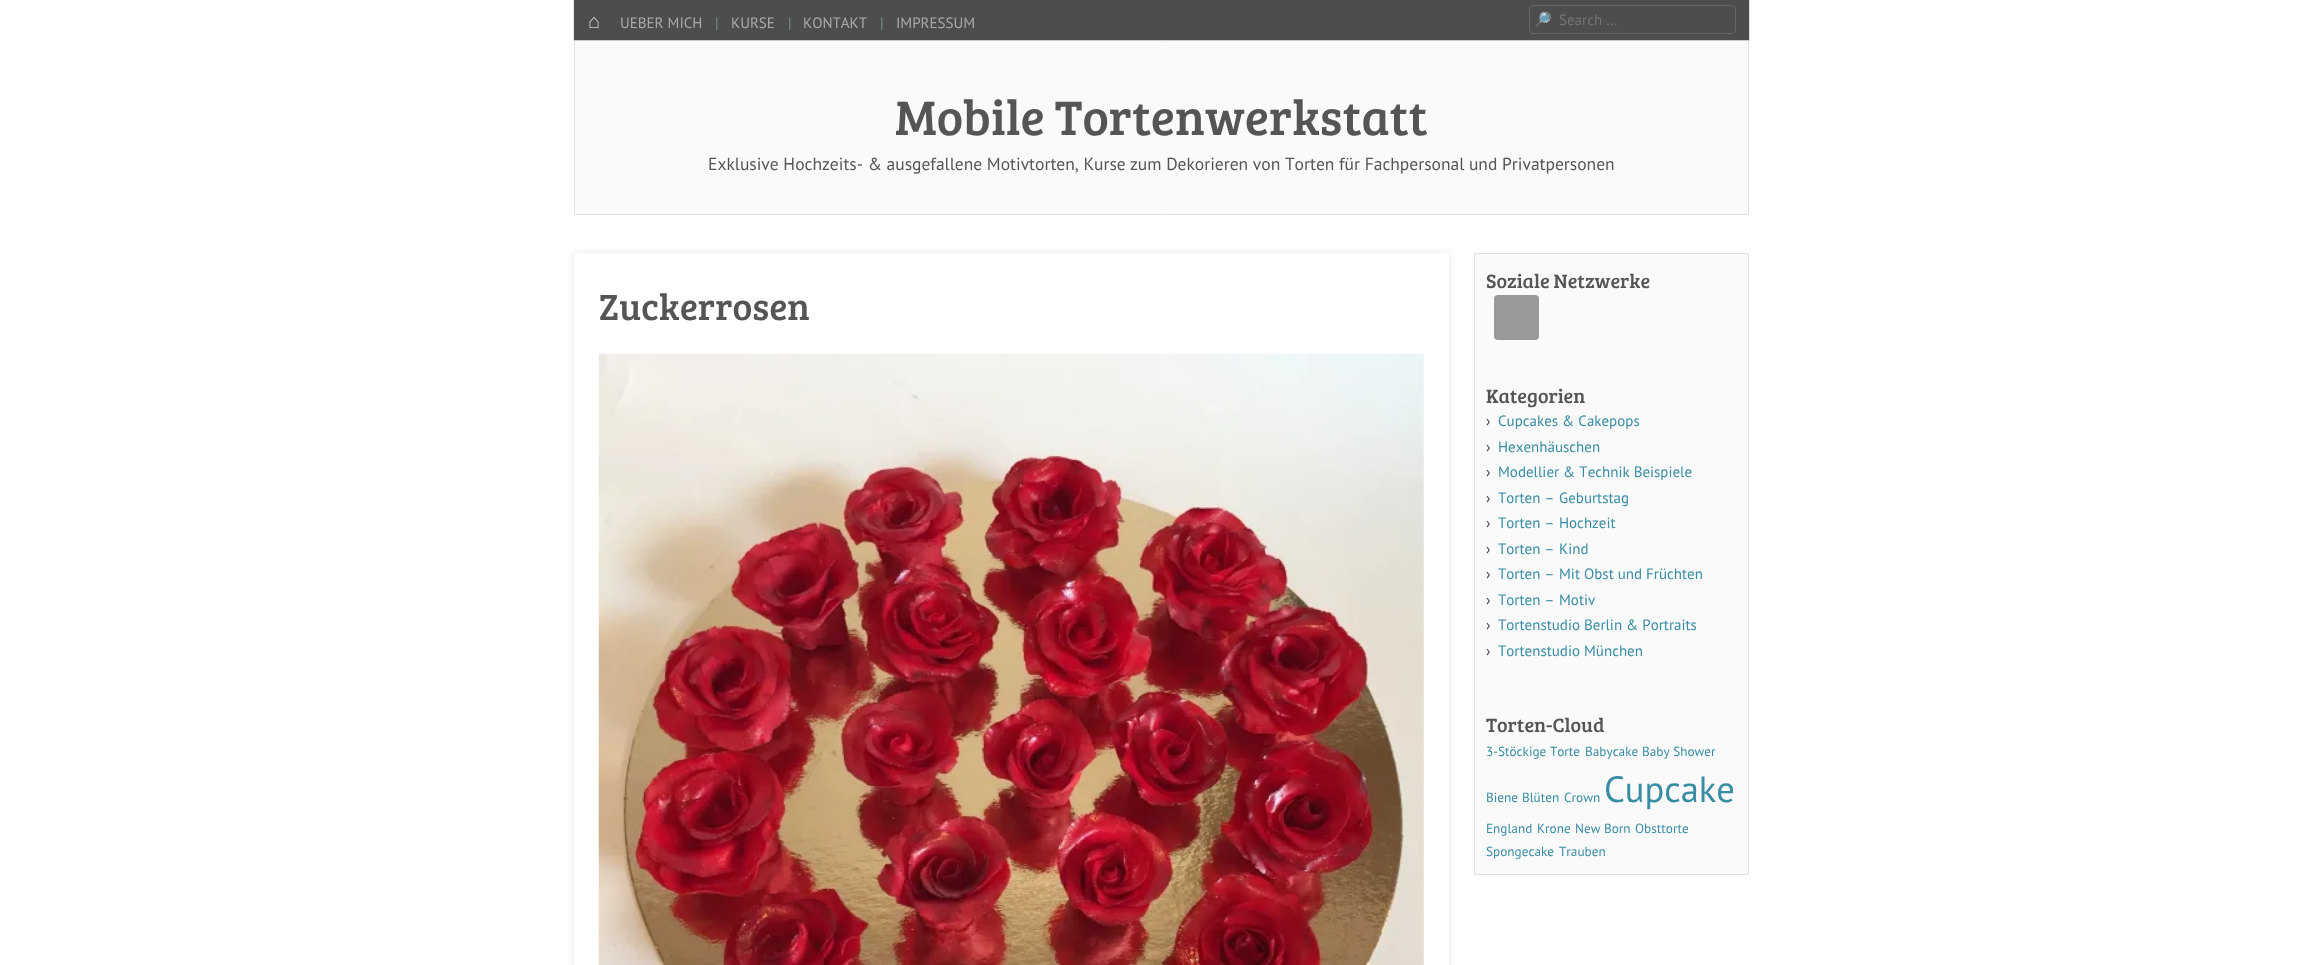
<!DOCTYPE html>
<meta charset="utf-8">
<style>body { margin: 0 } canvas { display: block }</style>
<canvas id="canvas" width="2322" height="965"></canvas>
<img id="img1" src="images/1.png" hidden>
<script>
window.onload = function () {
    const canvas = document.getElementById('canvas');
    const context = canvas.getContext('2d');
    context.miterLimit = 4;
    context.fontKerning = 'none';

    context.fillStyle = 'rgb(255, 255, 255)';
    context.fillRect(0, 0, 2322, 965);
    context.fillStyle = 'rgb(250, 250, 250)';
    context.beginPath();
    context.rect(574.5, 40.5, 1174, 174);
    context.fill();
    context.strokeStyle = 'rgb(225, 225, 225)';
    context.stroke();
    context.strokeStyle = 'rgba(0, 0, 0, 0.1)';
    context.strokeRect(573.5, -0.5, 1176, 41);
    context.fillStyle = 'rgb(77, 77, 77)';
    context.fillRect(574, 0, 1175, 40);
    context.beginPath();
    context.roundRect(1529.5, 5.5, 206, 28, 3.5);
    context.strokeStyle = 'rgb(102, 102, 102)';
    context.stroke();
    context.save();
    context.beginPath();
    context.moveTo(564, 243);
    context.lineTo(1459, 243);
    context.lineTo(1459, 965);
    context.lineTo(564, 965);
    context.closePath();
    context.moveTo(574, 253);
    context.lineTo(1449, 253);
    context.lineTo(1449, 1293);
    context.lineTo(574, 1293);
    context.closePath();
    context.clip('evenodd');
    context.fillStyle = 'rgba(0, 0, 0, 0.1)';
    context.filter = 'blur(3px)';
    context.beginPath();
    context.rect(574, 253, 875, 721);
    context.fill();
    context.filter = 'none';
    context.restore();
    context.fillStyle = 'rgba(255, 255, 255, 0.9)';
    context.fillRect(1448, 255, 1, 710);
    context.drawImage(document.getElementById('img1'), 598, 353, 826, 612);
    context.fillStyle = 'rgb(250, 250, 250)';
    context.beginPath();
    context.rect(1474.5, 253.5, 274, 621);
    context.fill();
    context.strokeStyle = 'rgb(225, 225, 225)';
    context.stroke();
    context.fillStyle = 'rgb(153, 153, 153)';
    context.beginPath();
    context.roundRect(1494, 295, 45, 45, 4);
    context.fill();
    context.font = '20px Liberation Serif';
    context.fillStyle = 'rgb(204, 204, 204)';
    context.fillText('⌂', 588, 28);
    context.font = '15px PT Sans';
    context.fillStyle = 'rgb(170, 170, 170)';
    context.fillText('UEBER MICH', 620, 28);
    context.fillStyle = 'rgb(124, 141, 149)';
    context.fillText('|', 715, 28);
    context.fillStyle = 'rgb(170, 170, 170)';
    context.fillText('KURSE', 731, 28);
    context.fillStyle = 'rgb(124, 141, 149)';
    context.fillText('|', 788, 28);
    context.fillStyle = 'rgb(170, 170, 170)';
    context.fillText('KONTAKT', 803, 28);
    context.fillStyle = 'rgb(124, 141, 149)';
    context.fillText('|', 880, 28);
    context.fillStyle = 'rgb(170, 170, 170)';
    context.fillText('IMPRESSUM', 896, 28);
    context.font = '15px Noto Color Emoji';
    context.fillStyle = 'rgb(204, 204, 204)';
    context.fillText('🔎', 1533, 25);
    context.font = '15px PT Sans';
    context.fillStyle = 'rgb(117, 117, 117)';
    context.fillText('Search …', 1559, 25);
    context.font = '50px Bree Serif';
    context.fillStyle = 'rgb(85, 85, 85)';
    context.fillText('Mobile Tortenwerkstatt', 895, 135);
    context.font = '17.5px PT Sans';
    context.fillText('Exklusive Hochzeits- & ausgefallene Motivtorten, Kurse', 708, 170);
    context.fillText('zum Dekorieren von Torten für Fachpersonal und Privatpersonen', 1130, 170);
    context.font = '37.5px Bree Serif';
    context.fillText('Zuckerrosen', 599, 320);
    context.font = '20px Bree Serif';
    context.fillText('Soziale Netzwerke', 1486, 288);
    context.fillText('Kategorien', 1486, 403);
    context.font = '15px PT Sans';
    context.fillStyle = 'rgb(68, 68, 68)';
    context.fillText('›', 1486, 426);
    context.fillStyle = 'rgb(56, 140, 164)';
    context.fillText('Cupcakes & Cakepops', 1498, 426);
    context.fillStyle = 'rgb(68, 68, 68)';
    context.fillText('›', 1486, 452);
    context.fillStyle = 'rgb(56, 140, 164)';
    context.fillText('Hexenhäuschen', 1498, 452);
    context.fillStyle = 'rgb(68, 68, 68)';
    context.fillText('›', 1486, 477);
    context.fillStyle = 'rgb(56, 140, 164)';
    context.fillText('Modellier & Technik Beispiele', 1498, 477);
    context.fillStyle = 'rgb(68, 68, 68)';
    context.fillText('›', 1486, 503);
    context.fillStyle = 'rgb(56, 140, 164)';
    context.fillText('Torten –', 1498, 503);
    context.fillText('Geburtstag', 1559, 503);
    context.fillStyle = 'rgb(68, 68, 68)';
    context.fillText('›', 1486, 528);
    context.fillStyle = 'rgb(56, 140, 164)';
    context.fillText('Torten –', 1498, 528);
    context.fillText('Hochzeit', 1559, 528);
    context.fillStyle = 'rgb(68, 68, 68)';
    context.fillText('›', 1486, 554);
    context.fillStyle = 'rgb(56, 140, 164)';
    context.fillText('Torten –', 1498, 554);
    context.fillText('Kind', 1559, 554);
    context.fillStyle = 'rgb(68, 68, 68)';
    context.fillText('›', 1486, 579);
    context.fillStyle = 'rgb(56, 140, 164)';
    context.fillText('Torten –', 1498, 579);
    context.fillText('Mit Obst und Früchten', 1559, 579);
    context.fillStyle = 'rgb(68, 68, 68)';
    context.fillText('›', 1486, 605);
    context.fillStyle = 'rgb(56, 140, 164)';
    context.fillText('Torten –', 1498, 605);
    context.fillText('Motiv', 1559, 605);
    context.fillStyle = 'rgb(68, 68, 68)';
    context.fillText('›', 1486, 630);
    context.fillStyle = 'rgb(56, 140, 164)';
    context.fillText('Tortenstudio Berlin & Portraits', 1498, 630);
    context.fillStyle = 'rgb(68, 68, 68)';
    context.fillText('›', 1486, 656);
    context.fillStyle = 'rgb(56, 140, 164)';
    context.fillText('Tortenstudio München', 1498, 656);
    context.font = '20px Bree Serif';
    context.fillStyle = 'rgb(85, 85, 85)';
    context.fillText('Torten-Cloud', 1486, 732);
    context.font = '13.25px PT Sans';
    context.fillStyle = 'rgb(56, 140, 164)';
    context.fillText('3-Stöckige Torte', 1486, 756);
    context.fillText('Babycake', 1585, 756);
    context.fillText('Baby Shower', 1642, 756);
    context.fillText('Biene', 1486, 802);
    context.fillText('Blüten', 1522, 802);
    context.fillText('Crown', 1564, 802);
    context.font = '36.5px PT Sans';
    context.fillText('Cupcake', 1604, 802);
    context.font = '13.25px PT Sans';
    context.fillText('England', 1486, 833);
    context.fillText('Krone', 1537, 833);
    context.fillText('New Born', 1575, 833);
    context.fillText('Obsttorte', 1635, 833);
    context.fillText('Spongecake', 1486, 856);
    context.fillText('Trauben', 1559, 856);
};
</script>
